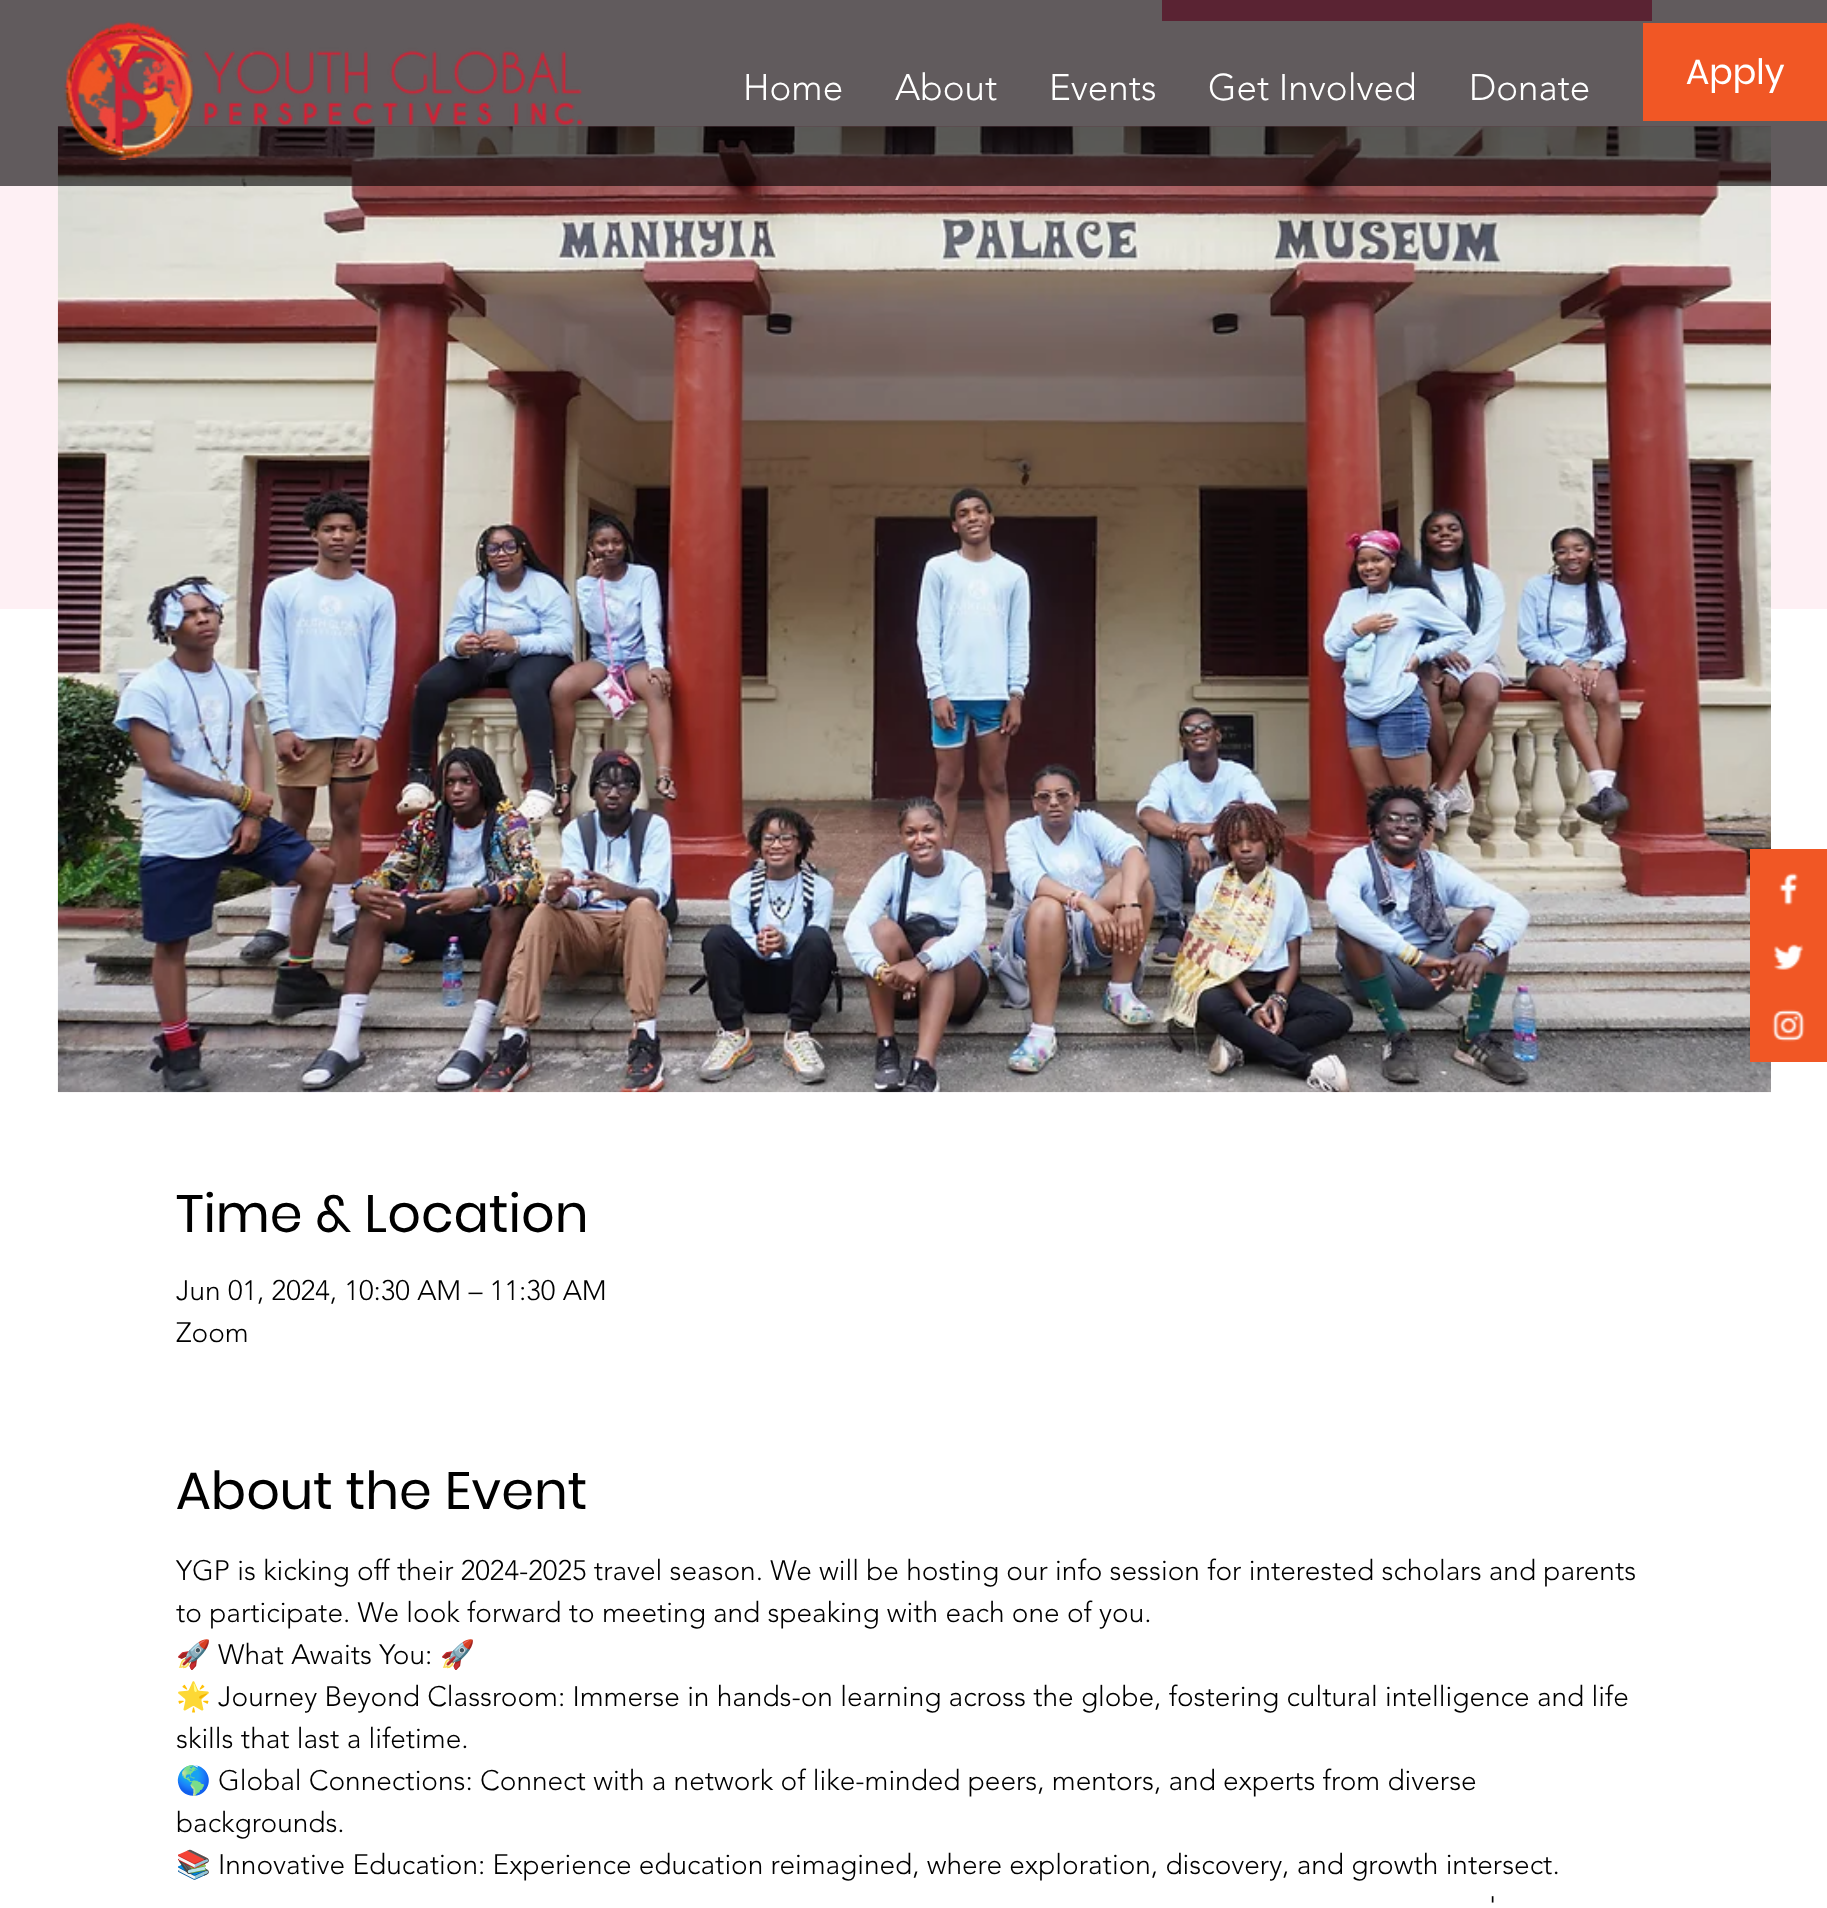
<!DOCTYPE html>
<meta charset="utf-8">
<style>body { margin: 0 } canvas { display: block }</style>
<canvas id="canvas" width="1827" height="1908"></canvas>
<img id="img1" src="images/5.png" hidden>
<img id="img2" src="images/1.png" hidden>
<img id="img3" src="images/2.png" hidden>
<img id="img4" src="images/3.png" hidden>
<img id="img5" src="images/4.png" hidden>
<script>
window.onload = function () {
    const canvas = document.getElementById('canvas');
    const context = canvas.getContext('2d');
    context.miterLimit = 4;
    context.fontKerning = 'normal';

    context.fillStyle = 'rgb(255, 255, 255)';
    context.fillRect(0, 0, 1827, 1908);
    context.fillStyle = 'rgb(254, 240, 244)';
    context.fillRect(0, 0, 1827, 609);
    context.fillStyle = 'rgb(236, 94, 135)';
    context.fillRect(1162, 0, 490, 21);
    context.fillStyle = 'rgb(245, 166, 189)';
    context.fillRect(58, 126, 1713, 1);
    context.drawImage(document.getElementById('img1'), 57, 126, 1714, 967);
    context.fillStyle = 'rgba(0, 0, 0, 0.62)';
    context.fillRect(0, 0, 1827, 186);
    context.drawImage(document.getElementById('img2'), 64, 21, 520, 139);
    context.fillStyle = 'rgb(241, 87, 37)';
    context.fillRect(1643, 23, 184, 98);
    context.fillRect(1750, 849, 77, 213);
    context.drawImage(document.getElementById('img3'), 1779, 873, 20, 33);
    context.drawImage(document.getElementById('img4'), 1773, 944, 31, 26);
    context.drawImage(document.getElementById('img5'), 1772, 1009, 33, 33);
    context.font = '300 36.75px "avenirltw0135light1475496"';
    context.fillStyle = 'rgb(255, 255, 255)';
    context.fillText('Home', 743, 100);
    context.fillText('About', 895, 100);
    context.fillText('Events', 1049, 100);
    context.fillText('Get Involved', 1208, 100);
    context.fillText('Donate', 1469, 100);
    context.font = '35px Poppins';
    context.fillText('Apply', 1686, 84);
    context.font = '52.5px Poppins';
    context.fillStyle = 'rgb(0, 0, 0)';
    context.fillText('Time & Location', 176, 1232);
    context.font = '300 28px "avenirltw0135light1475496"';
    context.fillText('Jun 01, 2024, 10:30 AM – 11:30 AM', 176, 1300);
    context.fillText('Zoom', 176, 1342);
    context.font = '52.5px Poppins';
    context.fillText('About the Event', 176, 1509);
    context.font = '300 28px "avenirltw0135light1475496"';
    context.fillText('YGP is kicking off their 2024-2025 travel season. We will be hosting our info session for interested scholars and parents', 176, 1580);
    context.fillText('to participate. We look forward to meeting and speaking with each one of you.', 176, 1622);
    context.font = '28px Noto Color Emoji';
    context.fillText('🚀', 176, 1664);
    context.font = '300 28px "avenirltw0135light1475496"';
    context.fillText('What Awaits You:', 218, 1664);
    context.font = '28px Noto Color Emoji';
    context.fillText('🚀', 440, 1664);
    context.fillText('🌟', 176, 1706);
    context.font = '300 28px "avenirltw0135light1475496"';
    context.fillText('Journey Beyond Classroom: Immerse in hands-on learning across the globe, fostering cultural intelligence and life', 218, 1706);
    context.fillText('skills that last a lifetime.', 176, 1748);
    context.font = '28px Noto Color Emoji';
    context.fillText('🌎', 176, 1790);
    context.font = '300 28px "avenirltw0135light1475496"';
    context.fillText('Global Connections: Connect with a network of like-minded peers, mentors, and experts from diverse', 218, 1790);
    context.fillText('backgrounds.', 176, 1832);
    context.font = '28px Noto Color Emoji';
    context.fillText('📚', 176, 1874);
    context.font = '300 28px "avenirltw0135light1475496"';
    context.fillText('Innovative Education: Experience education reimagined, where exploration, discovery, and growth intersect.', 218, 1874);
    context.fillText('\'', 1489, 1916);
};
</script>
